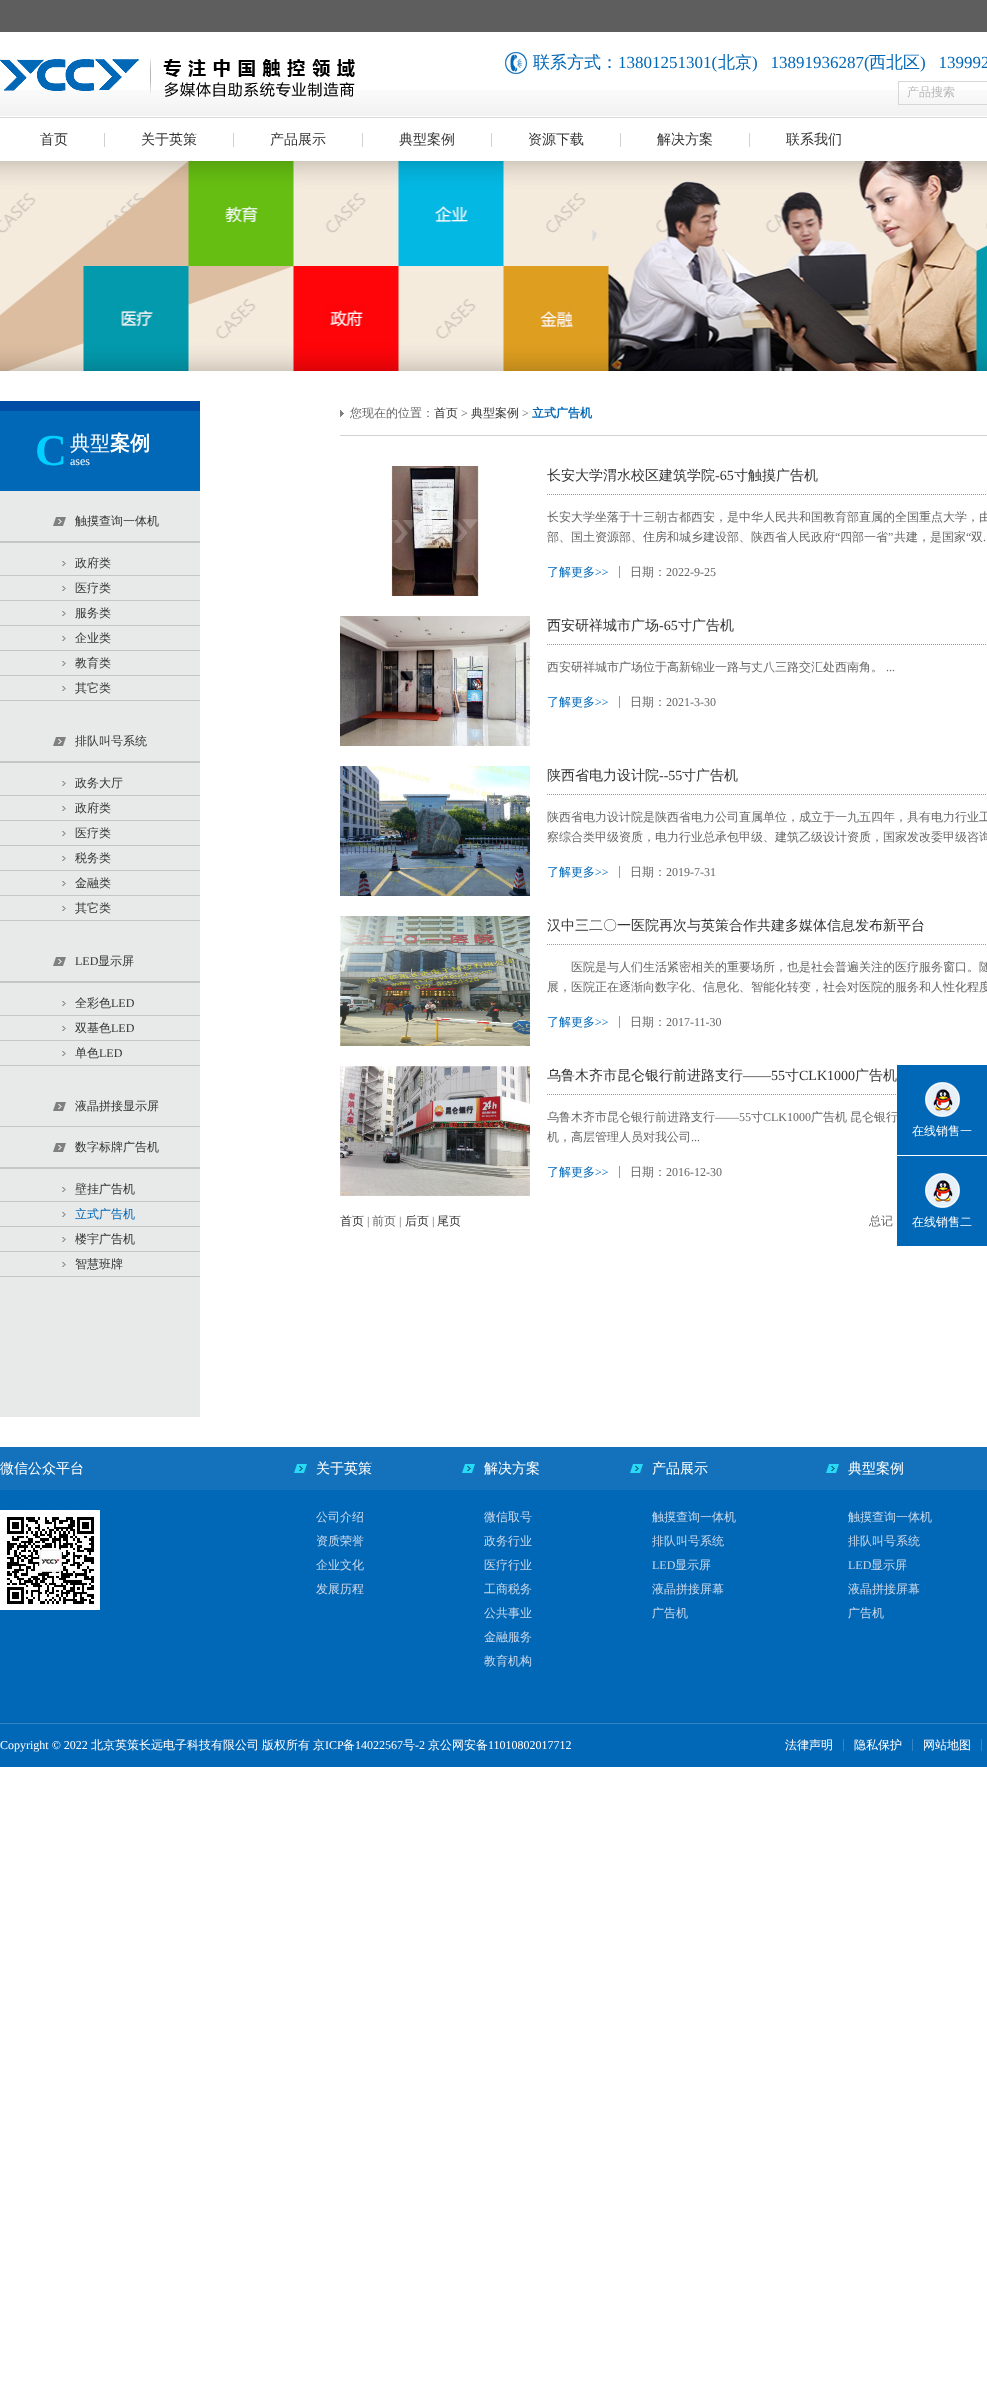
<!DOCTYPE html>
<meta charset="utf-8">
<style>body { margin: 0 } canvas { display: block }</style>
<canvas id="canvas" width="987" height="2402"></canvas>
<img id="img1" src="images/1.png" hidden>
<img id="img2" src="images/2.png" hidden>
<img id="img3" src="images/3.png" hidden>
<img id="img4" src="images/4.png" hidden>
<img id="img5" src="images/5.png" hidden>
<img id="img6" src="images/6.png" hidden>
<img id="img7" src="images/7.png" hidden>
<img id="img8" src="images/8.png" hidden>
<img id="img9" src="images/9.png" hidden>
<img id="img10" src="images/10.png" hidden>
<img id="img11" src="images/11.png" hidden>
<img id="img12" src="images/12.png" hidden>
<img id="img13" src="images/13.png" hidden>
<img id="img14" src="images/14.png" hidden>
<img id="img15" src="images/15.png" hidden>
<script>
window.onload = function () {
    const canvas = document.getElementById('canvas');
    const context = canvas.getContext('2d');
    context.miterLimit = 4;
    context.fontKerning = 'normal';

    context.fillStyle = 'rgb(255, 255, 255)';
    context.fillRect(0, 0, 987, 2402);
    context.fillStyle = 'rgb(94, 94, 94)';
    context.fillRect(0, 0, 987, 32);
    context.drawImage(document.getElementById('img1'), 0, 90, 987, 26);
    context.fillStyle = 'rgb(217, 217, 217)';
    context.fillRect(0, 117, 987, 1);
    context.drawImage(document.getElementById('img2'), 0, 57, 355, 40);
    context.drawImage(document.getElementById('img3'), 505, 52, 22, 22);
    context.strokeStyle = 'rgb(215, 215, 215)';
    context.strokeRect(898.5, 81.5, 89, 23);
    context.fillStyle = 'rgb(209, 209, 209)';
    context.fillRect(104, 133, 1, 14);
    context.fillRect(233, 133, 1, 14);
    context.fillRect(362, 133, 1, 14);
    context.fillRect(491, 133, 1, 14);
    context.fillRect(620, 133, 1, 14);
    context.fillRect(749, 133, 1, 14);
    context.drawImage(document.getElementById('img4'), 0, 161, 987, 210);
    context.fillStyle = 'rgb(1, 103, 183)';
    context.fillRect(0, 411, 200, 80);
    context.fillStyle = 'rgb(1, 77, 165)';
    context.fillRect(0, 401, 200, 10);
    context.fillStyle = 'rgb(232, 233, 233)';
    context.fillRect(0, 491, 200, 926);
    context.fillStyle = 'rgb(197, 198, 198)';
    context.fillRect(0, 541, 200, 2);
    context.drawImage(document.getElementById('img5'), 53, 517, 13, 9);
    context.fillRect(0, 575, 200, 1);
    context.drawImage(document.getElementById('img6'), 62, 561, 4, 5);
    context.fillRect(0, 600, 200, 1);
    context.drawImage(document.getElementById('img6'), 62, 586, 4, 5);
    context.fillRect(0, 625, 200, 1);
    context.drawImage(document.getElementById('img6'), 62, 611, 4, 5);
    context.fillRect(0, 650, 200, 1);
    context.drawImage(document.getElementById('img6'), 62, 636, 4, 5);
    context.fillRect(0, 675, 200, 1);
    context.drawImage(document.getElementById('img6'), 62, 661, 4, 5);
    context.fillRect(0, 700, 200, 1);
    context.drawImage(document.getElementById('img6'), 62, 686, 4, 5);
    context.fillRect(0, 761, 200, 2);
    context.drawImage(document.getElementById('img5'), 53, 737, 13, 9);
    context.fillRect(0, 795, 200, 1);
    context.drawImage(document.getElementById('img6'), 62, 781, 4, 5);
    context.fillRect(0, 820, 200, 1);
    context.drawImage(document.getElementById('img6'), 62, 806, 4, 5);
    context.fillRect(0, 845, 200, 1);
    context.drawImage(document.getElementById('img6'), 62, 831, 4, 5);
    context.fillRect(0, 870, 200, 1);
    context.drawImage(document.getElementById('img6'), 62, 856, 4, 5);
    context.fillRect(0, 895, 200, 1);
    context.drawImage(document.getElementById('img6'), 62, 881, 4, 5);
    context.fillRect(0, 920, 200, 1);
    context.drawImage(document.getElementById('img6'), 62, 906, 4, 5);
    context.fillRect(0, 981, 200, 2);
    context.drawImage(document.getElementById('img5'), 53, 957, 13, 9);
    context.fillRect(0, 1015, 200, 1);
    context.drawImage(document.getElementById('img6'), 62, 1001, 4, 5);
    context.fillRect(0, 1040, 200, 1);
    context.drawImage(document.getElementById('img6'), 62, 1026, 4, 5);
    context.fillRect(0, 1065, 200, 1);
    context.drawImage(document.getElementById('img6'), 62, 1051, 4, 5);
    context.fillRect(0, 1126, 200, 1);
    context.drawImage(document.getElementById('img5'), 53, 1102, 13, 9);
    context.fillRect(0, 1167, 200, 2);
    context.drawImage(document.getElementById('img5'), 53, 1143, 13, 9);
    context.fillRect(0, 1201, 200, 1);
    context.drawImage(document.getElementById('img6'), 62, 1187, 4, 5);
    context.fillRect(0, 1226, 200, 1);
    context.drawImage(document.getElementById('img6'), 62, 1212, 4, 5);
    context.fillRect(0, 1251, 200, 1);
    context.drawImage(document.getElementById('img6'), 62, 1237, 4, 5);
    context.fillRect(0, 1276, 200, 1);
    context.drawImage(document.getElementById('img6'), 62, 1262, 4, 5);
    context.fillStyle = 'rgb(209, 209, 209)';
    context.fillRect(340, 435, 647, 1);
    context.drawImage(document.getElementById('img7'), 340, 410, 4, 7);
    context.drawImage(document.getElementById('img8'), 391, 466, 88, 130);
    context.beginPath();
    context.moveTo(547, 494.5);
    context.lineTo(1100, 494.5);
    context.strokeStyle = 'rgb(153, 153, 153)';
    context.setLineDash([1, 1]);
    context.stroke();
    context.fillStyle = 'rgb(153, 153, 153)';
    context.fillRect(619, 566, 1, 12);
    context.drawImage(document.getElementById('img9'), 340, 616, 190, 130);
    context.beginPath();
    context.moveTo(547, 644.5);
    context.lineTo(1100, 644.5);
    context.stroke();
    context.fillRect(619, 696, 1, 12);
    context.drawImage(document.getElementById('img10'), 340, 766, 190, 130);
    context.beginPath();
    context.moveTo(547, 794.5);
    context.lineTo(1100, 794.5);
    context.stroke();
    context.fillRect(619, 866, 1, 12);
    context.drawImage(document.getElementById('img11'), 340, 916, 190, 130);
    context.beginPath();
    context.moveTo(547, 944.5);
    context.lineTo(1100, 944.5);
    context.stroke();
    context.fillRect(619, 1016, 1, 12);
    context.drawImage(document.getElementById('img12'), 340, 1066, 190, 130);
    context.beginPath();
    context.moveTo(547, 1094.5);
    context.lineTo(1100, 1094.5);
    context.stroke();
    context.fillRect(619, 1166, 1, 12);
    context.fillStyle = 'rgb(1, 103, 183)';
    context.fillRect(0, 1490, 987, 277);
    context.fillRect(897, 1156, 90, 90);
    context.drawImage(document.getElementById('img13'), 925, 1173, 35, 35);
    context.fillStyle = 'rgb(20, 114, 188)';
    context.fillRect(0, 1447, 987, 43);
    context.drawImage(document.getElementById('img14'), 0, 1510, 100, 100);
    context.drawImage(document.getElementById('img15'), 294, 1464, 13, 9);
    context.drawImage(document.getElementById('img15'), 462, 1464, 13, 9);
    context.drawImage(document.getElementById('img15'), 630, 1464, 13, 9);
    context.drawImage(document.getElementById('img15'), 826, 1464, 13, 9);
    context.fillStyle = 'rgb(52, 133, 197)';
    context.fillRect(0, 1723, 987, 1);
    context.fillRect(843, 1739, 1, 12);
    context.fillRect(912, 1739, 1, 12);
    context.fillRect(981, 1739, 1, 12);
    context.font = '500 17px WenQuanYi Zen Hei';
    context.fillStyle = 'rgb(1, 103, 183)';
    context.fillText('联系方式：', 533, 68);
    context.font = '17px Liberation Serif';
    context.fillText('13801251301(', 618, 68);
    context.font = '500 17px WenQuanYi Zen Hei';
    context.fillText('北京', 718, 68);
    context.font = '17px Liberation Serif';
    context.fillText(')   13891936287(', 752, 68);
    context.font = '500 17px WenQuanYi Zen Hei';
    context.fillText('西北区', 869, 68);
    context.font = '17px Liberation Serif';
    context.fillText(')   139992', 920, 68);
    context.font = '500 12px WenQuanYi Zen Hei';
    context.fillStyle = 'rgb(184, 184, 184)';
    context.fillText('产品搜索', 907, 96);
    context.font = '500 14px WenQuanYi Zen Hei';
    context.fillStyle = 'rgb(51, 51, 51)';
    context.fillText('首页', 40, 144);
    context.fillText('关于英策', 141, 144);
    context.fillText('产品展示', 270, 144);
    context.fillText('典型案例', 399, 144);
    context.fillText('资源下载', 528, 144);
    context.fillText('解决方案', 657, 144);
    context.fillText('联系我们', 786, 144);
    context.font = 'bold 44px Liberation Serif';
    context.fillStyle = 'rgb(2, 206, 255)';
    context.fillText('C', 35, 465);
    context.font = '500 20px WenQuanYi Zen Hei';
    context.fillStyle = 'rgb(255, 255, 255)';
    context.fillText('典型', 70, 450);
    context.font = 'bold 20px WenQuanYi Zen Hei';
    context.fillText('案例', 110, 450);
    context.font = '12px Liberation Serif';
    context.fillText('ases', 70, 465);
    context.font = '500 12px WenQuanYi Zen Hei';
    context.fillStyle = 'rgb(51, 51, 51)';
    context.fillText('触摸查询一体机', 75, 525);
    context.fillText('政府类', 75, 567);
    context.fillText('医疗类', 75, 592);
    context.fillText('服务类', 75, 617);
    context.fillText('企业类', 75, 642);
    context.fillText('教育类', 75, 667);
    context.fillText('其它类', 75, 692);
    context.fillText('排队叫号系统', 75, 745);
    context.fillText('政务大厅', 75, 787);
    context.fillText('政府类', 75, 812);
    context.fillText('医疗类', 75, 837);
    context.fillText('税务类', 75, 862);
    context.fillText('金融类', 75, 887);
    context.fillText('其它类', 75, 912);
    context.font = '12px Liberation Serif';
    context.fillText('LED', 75, 965);
    context.font = '500 12px WenQuanYi Zen Hei';
    context.fillText('显示屏', 98, 965);
    context.fillText('全彩色', 75, 1007);
    context.font = '12px Liberation Serif';
    context.fillText('LED', 111, 1007);
    context.font = '500 12px WenQuanYi Zen Hei';
    context.fillText('双基色', 75, 1032);
    context.font = '12px Liberation Serif';
    context.fillText('LED', 111, 1032);
    context.font = '500 12px WenQuanYi Zen Hei';
    context.fillText('单色', 75, 1057);
    context.font = '12px Liberation Serif';
    context.fillText('LED', 99, 1057);
    context.font = '500 12px WenQuanYi Zen Hei';
    context.fillText('液晶拼接显示屏', 75, 1110);
    context.fillText('数字标牌广告机', 75, 1151);
    context.fillText('壁挂广告机', 75, 1193);
    context.fillStyle = 'rgb(1, 103, 183)';
    context.fillText('立式广告机', 75, 1218);
    context.fillStyle = 'rgb(51, 51, 51)';
    context.fillText('楼宇广告机', 75, 1243);
    context.fillText('智慧班牌', 75, 1268);
    context.fillStyle = 'rgb(102, 102, 102)';
    context.fillText('您现在的位置：', 350, 417);
    context.fillStyle = 'rgb(51, 51, 51)';
    context.fillText('首页', 434, 417);
    context.font = '12px Liberation Serif';
    context.fillStyle = 'rgb(102, 102, 102)';
    context.fillText('>', 461, 417);
    context.font = '500 12px WenQuanYi Zen Hei';
    context.fillStyle = 'rgb(51, 51, 51)';
    context.fillText('典型案例', 471, 417);
    context.font = '12px Liberation Serif';
    context.fillStyle = 'rgb(102, 102, 102)';
    context.fillText('>', 522, 417);
    context.font = 'bold 12px WenQuanYi Zen Hei';
    context.fillStyle = 'rgb(1, 103, 183)';
    context.fillText('立式广告机', 532, 417);
    context.font = '500 14px WenQuanYi Zen Hei';
    context.fillStyle = 'rgb(51, 51, 51)';
    context.fillText('长安大学渭水校区建筑学院', 547, 480);
    context.font = '14px Liberation Serif';
    context.fillText('-65', 715, 480);
    context.font = '500 14px WenQuanYi Zen Hei';
    context.fillText('寸触摸广告机', 734, 480);
    context.font = '500 12px WenQuanYi Zen Hei';
    context.fillStyle = 'rgb(102, 102, 102)';
    context.fillText('长安大学坐落于十三朝古都西安，是中华人民共和国教育部直属的全国重点大学，由', 547, 521);
    context.fillText('部、国土资源部、住房和城乡建设部、陕西省人民政府', 547, 541);
    context.font = '12px Liberation Serif';
    context.fillText('“', 835, 541);
    context.font = '500 12px WenQuanYi Zen Hei';
    context.fillText('四部一省', 840, 541);
    context.font = '12px Liberation Serif';
    context.fillText('”', 888, 541);
    context.font = '500 12px WenQuanYi Zen Hei';
    context.fillText('共建，是国家', 894, 541);
    context.font = '12px Liberation Serif';
    context.fillText('“', 966, 541);
    context.font = '500 12px WenQuanYi Zen Hei';
    context.fillText('双', 971, 541);
    context.font = '12px Liberation Serif';
    context.fillText('.', 983, 541);
    context.font = '500 12px WenQuanYi Zen Hei';
    context.fillStyle = 'rgb(1, 103, 183)';
    context.fillText('了解更多', 547, 576);
    context.font = '12px Liberation Serif';
    context.fillText('>>', 595, 576);
    context.font = '500 12px WenQuanYi Zen Hei';
    context.fillStyle = 'rgb(102, 102, 102)';
    context.fillText('日期：', 630, 576);
    context.font = '12px Liberation Serif';
    context.fillText('2022-9-25', 666, 576);
    context.font = '500 14px WenQuanYi Zen Hei';
    context.fillStyle = 'rgb(51, 51, 51)';
    context.fillText('西安研祥城市广场', 547, 630);
    context.font = '14px Liberation Serif';
    context.fillText('-65', 659, 630);
    context.font = '500 14px WenQuanYi Zen Hei';
    context.fillText('寸广告机', 678, 630);
    context.font = '500 12px WenQuanYi Zen Hei';
    context.fillStyle = 'rgb(102, 102, 102)';
    context.fillText('西安研祥城市广场位于高新锦业一路与丈八三路交汇处西南角。', 547, 671);
    context.font = '12px Liberation Serif';
    context.fillText('...', 886, 671);
    context.font = '500 12px WenQuanYi Zen Hei';
    context.fillStyle = 'rgb(1, 103, 183)';
    context.fillText('了解更多', 547, 706);
    context.font = '12px Liberation Serif';
    context.fillText('>>', 595, 706);
    context.font = '500 12px WenQuanYi Zen Hei';
    context.fillStyle = 'rgb(102, 102, 102)';
    context.fillText('日期：', 630, 706);
    context.font = '12px Liberation Serif';
    context.fillText('2021-3-30', 666, 706);
    context.font = '500 14px WenQuanYi Zen Hei';
    context.fillStyle = 'rgb(51, 51, 51)';
    context.fillText('陕西省电力设计院', 547, 780);
    context.font = '14px Liberation Serif';
    context.fillText('--55', 659, 780);
    context.font = '500 14px WenQuanYi Zen Hei';
    context.fillText('寸广告机', 682, 780);
    context.font = '500 12px WenQuanYi Zen Hei';
    context.fillStyle = 'rgb(102, 102, 102)';
    context.fillText('陕西省电力设计院是陕西省电力公司直属单位，成立于一九五四年，具有电力行业工', 547, 821);
    context.fillText('察综合类甲级资质，电力行业总承包甲级、建筑乙级设计资质，国家发改委甲级咨询', 547, 841);
    context.fillStyle = 'rgb(1, 103, 183)';
    context.fillText('了解更多', 547, 876);
    context.font = '12px Liberation Serif';
    context.fillText('>>', 595, 876);
    context.font = '500 12px WenQuanYi Zen Hei';
    context.fillStyle = 'rgb(102, 102, 102)';
    context.fillText('日期：', 630, 876);
    context.font = '12px Liberation Serif';
    context.fillText('2019-7-31', 666, 876);
    context.font = '500 14px WenQuanYi Zen Hei';
    context.fillStyle = 'rgb(51, 51, 51)';
    context.fillText('汉中三二〇一医院再次与英策合作共建多媒体信息发布新平台', 547, 930);
    context.font = '500 12px WenQuanYi Zen Hei';
    context.fillStyle = 'rgb(102, 102, 102)';
    context.fillText('医院是与人们生活紧密相关的重要场所，也是社会普遍关注的医疗服务窗口。随', 571, 971);
    context.fillText('展，医院正在逐渐向数字化、信息化、智能化转变，社会对医院的服务和人性化程度', 547, 991);
    context.fillStyle = 'rgb(1, 103, 183)';
    context.fillText('了解更多', 547, 1026);
    context.font = '12px Liberation Serif';
    context.fillText('>>', 595, 1026);
    context.font = '500 12px WenQuanYi Zen Hei';
    context.fillStyle = 'rgb(102, 102, 102)';
    context.fillText('日期：', 630, 1026);
    context.font = '12px Liberation Serif';
    context.fillText('2017-11-30', 666, 1026);
    context.font = '500 14px WenQuanYi Zen Hei';
    context.fillStyle = 'rgb(51, 51, 51)';
    context.fillText('乌鲁木齐市昆仑银行前进路支行', 547, 1080);
    context.font = '14px Liberation Serif';
    context.fillText('——55', 743, 1080);
    context.font = '500 14px WenQuanYi Zen Hei';
    context.fillText('寸', 785, 1080);
    context.font = '14px Liberation Serif';
    context.fillText('CLK1000', 799, 1080);
    context.font = '500 14px WenQuanYi Zen Hei';
    context.fillText('广告机', 855, 1080);
    context.font = '500 12px WenQuanYi Zen Hei';
    context.fillStyle = 'rgb(102, 102, 102)';
    context.fillText('乌鲁木齐市昆仑银行前进路支行', 547, 1121);
    context.font = '12px Liberation Serif';
    context.fillText('——55', 715, 1121);
    context.font = '500 12px WenQuanYi Zen Hei';
    context.fillText('寸', 751, 1121);
    context.font = '12px Liberation Serif';
    context.fillText('CLK1000', 763, 1121);
    context.font = '500 12px WenQuanYi Zen Hei';
    context.fillText('广告机', 811, 1121);
    context.fillText('昆仑银行', 850, 1121);
    context.fillText('机，高层管理人员对我公司', 547, 1141);
    context.font = '12px Liberation Serif';
    context.fillText('...', 691, 1141);
    context.font = '500 12px WenQuanYi Zen Hei';
    context.fillStyle = 'rgb(1, 103, 183)';
    context.fillText('了解更多', 547, 1176);
    context.font = '12px Liberation Serif';
    context.fillText('>>', 595, 1176);
    context.font = '500 12px WenQuanYi Zen Hei';
    context.fillStyle = 'rgb(102, 102, 102)';
    context.fillText('日期：', 630, 1176);
    context.font = '12px Liberation Serif';
    context.fillText('2016-12-30', 666, 1176);
    context.font = '500 12px WenQuanYi Zen Hei';
    context.fillStyle = 'rgb(51, 51, 51)';
    context.fillText('首页', 340, 1225);
    context.font = '12px Liberation Serif';
    context.fillStyle = 'rgb(102, 102, 102)';
    context.fillText('|', 367, 1225);
    context.font = '500 12px WenQuanYi Zen Hei';
    context.fillText('前页', 372, 1225);
    context.font = '12px Liberation Serif';
    context.fillText('|', 399, 1225);
    context.font = '500 12px WenQuanYi Zen Hei';
    context.fillStyle = 'rgb(51, 51, 51)';
    context.fillText('后页', 405, 1225);
    context.font = '12px Liberation Serif';
    context.fillStyle = 'rgb(102, 102, 102)';
    context.fillText('|', 432, 1225);
    context.font = '500 12px WenQuanYi Zen Hei';
    context.fillStyle = 'rgb(51, 51, 51)';
    context.fillText('尾页', 437, 1225);
    context.fillStyle = 'rgb(102, 102, 102)';
    context.fillText('总记', 869, 1225);
    context.fillStyle = 'rgb(1, 103, 183)';
    context.fillRect(897, 1065, 90, 90);
    context.drawImage(document.getElementById('img13'), 925, 1082, 35, 35);
    context.fillStyle = 'rgb(255, 255, 255)';
    context.fillText('在线销售一', 912, 1135);
    context.fillText('在线销售二', 912, 1226);
    context.font = '500 14px WenQuanYi Zen Hei';
    context.fillText('微信公众平台', 0, 1473);
    context.fillText('关于英策', 316, 1473);
    context.font = '500 12px WenQuanYi Zen Hei';
    context.fillStyle = 'rgb(203, 217, 235)';
    context.fillText('公司介绍', 316, 1521);
    context.fillText('资质荣誉', 316, 1545);
    context.fillText('企业文化', 316, 1569);
    context.fillText('发展历程', 316, 1593);
    context.font = '500 14px WenQuanYi Zen Hei';
    context.fillStyle = 'rgb(255, 255, 255)';
    context.fillText('解决方案', 484, 1473);
    context.font = '500 12px WenQuanYi Zen Hei';
    context.fillStyle = 'rgb(203, 217, 235)';
    context.fillText('微信取号', 484, 1521);
    context.fillText('政务行业', 484, 1545);
    context.fillText('医疗行业', 484, 1569);
    context.fillText('工商税务', 484, 1593);
    context.fillText('公共事业', 484, 1617);
    context.fillText('金融服务', 484, 1641);
    context.fillText('教育机构', 484, 1665);
    context.font = '500 14px WenQuanYi Zen Hei';
    context.fillStyle = 'rgb(255, 255, 255)';
    context.fillText('产品展示', 652, 1473);
    context.font = '500 12px WenQuanYi Zen Hei';
    context.fillStyle = 'rgb(203, 217, 235)';
    context.fillText('触摸查询一体机', 652, 1521);
    context.fillText('排队叫号系统', 652, 1545);
    context.font = '12px Liberation Serif';
    context.fillText('LED', 652, 1569);
    context.font = '500 12px WenQuanYi Zen Hei';
    context.fillText('显示屏', 675, 1569);
    context.fillText('液晶拼接屏幕', 652, 1593);
    context.fillText('广告机', 652, 1617);
    context.font = '500 14px WenQuanYi Zen Hei';
    context.fillStyle = 'rgb(255, 255, 255)';
    context.fillText('典型案例', 848, 1473);
    context.font = '500 12px WenQuanYi Zen Hei';
    context.fillStyle = 'rgb(203, 217, 235)';
    context.fillText('触摸查询一体机', 848, 1521);
    context.fillText('排队叫号系统', 848, 1545);
    context.font = '12px Liberation Serif';
    context.fillText('LED', 848, 1569);
    context.font = '500 12px WenQuanYi Zen Hei';
    context.fillText('显示屏', 871, 1569);
    context.fillText('液晶拼接屏幕', 848, 1593);
    context.fillText('广告机', 848, 1617);
    context.font = '12px Liberation Serif';
    context.fillStyle = 'rgb(255, 255, 255)';
    context.fillText('Copyright © 2022', 0, 1749);
    context.font = '500 12px WenQuanYi Zen Hei';
    context.fillText('北京英策长远电子科技有限公司', 91, 1749);
    context.fillText('版权所有', 262, 1749);
    context.fillText('京', 313, 1749);
    context.font = '12px Liberation Serif';
    context.fillText('ICP', 325, 1749);
    context.font = '500 12px WenQuanYi Zen Hei';
    context.fillText('备', 343, 1749);
    context.font = '12px Liberation Serif';
    context.fillText('14022567', 355, 1749);
    context.font = '500 12px WenQuanYi Zen Hei';
    context.fillText('号', 403, 1749);
    context.font = '12px Liberation Serif';
    context.fillText('-2', 415, 1749);
    context.font = '500 12px WenQuanYi Zen Hei';
    context.fillText('京公网安备', 428, 1749);
    context.font = '12px Liberation Serif';
    context.fillText('11010802017712', 488, 1749);
    context.font = '500 12px WenQuanYi Zen Hei';
    context.fillText('法律声明', 785, 1749);
    context.fillText('隐私保护', 854, 1749);
    context.fillText('网站地图', 923, 1749);
};
</script>
